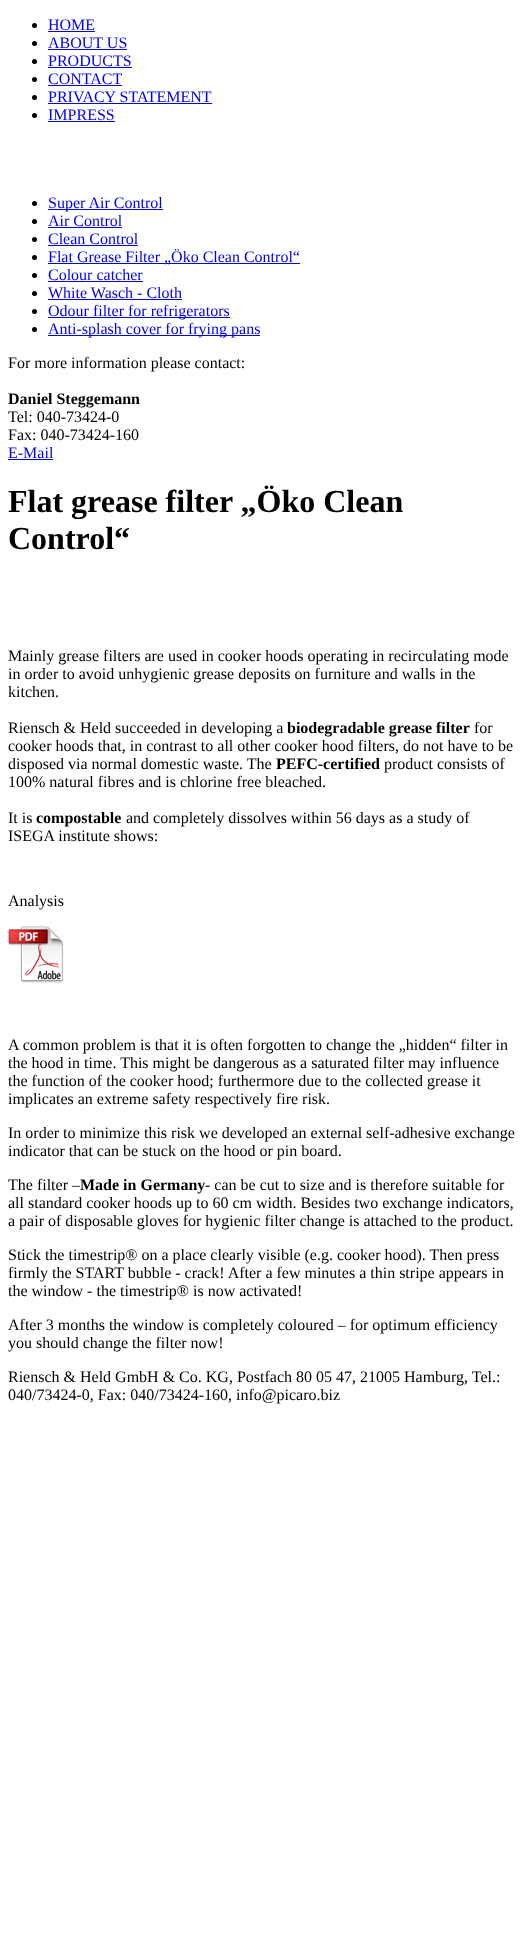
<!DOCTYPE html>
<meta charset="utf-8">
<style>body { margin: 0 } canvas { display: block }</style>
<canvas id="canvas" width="525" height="1952"></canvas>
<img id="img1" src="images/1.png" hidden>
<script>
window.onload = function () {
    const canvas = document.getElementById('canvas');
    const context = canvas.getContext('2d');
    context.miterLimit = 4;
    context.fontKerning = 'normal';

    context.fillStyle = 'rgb(255, 255, 255)';
    context.fillRect(0, 0, 525, 1952);
    context.fillStyle = 'rgb(0, 0, 0)';
    context.beginPath();
    context.arc(34.5, 25.5, 2.5, 0, 2 * Math.PI);
    context.fill();
    context.fillStyle = 'rgb(0, 0, 238)';
    context.fillRect(48, 31, 47, 1);
    context.fillStyle = 'rgb(0, 0, 0)';
    context.beginPath();
    context.arc(34.5, 43.5, 2.5, 0, 2 * Math.PI);
    context.fill();
    context.fillStyle = 'rgb(0, 0, 238)';
    context.fillRect(48, 49, 79, 1);
    context.fillStyle = 'rgb(0, 0, 0)';
    context.beginPath();
    context.arc(34.5, 61.5, 2.5, 0, 2 * Math.PI);
    context.fill();
    context.fillStyle = 'rgb(0, 0, 238)';
    context.fillRect(48, 67, 84, 1);
    context.fillStyle = 'rgb(0, 0, 0)';
    context.beginPath();
    context.arc(34.5, 79.5, 2.5, 0, 2 * Math.PI);
    context.fill();
    context.fillStyle = 'rgb(0, 0, 238)';
    context.fillRect(48, 85, 74, 1);
    context.fillStyle = 'rgb(0, 0, 0)';
    context.beginPath();
    context.arc(34.5, 97.5, 2.5, 0, 2 * Math.PI);
    context.fill();
    context.fillStyle = 'rgb(0, 0, 238)';
    context.fillRect(48, 103, 164, 1);
    context.fillStyle = 'rgb(0, 0, 0)';
    context.beginPath();
    context.arc(34.5, 115.5, 2.5, 0, 2 * Math.PI);
    context.fill();
    context.fillStyle = 'rgb(0, 0, 238)';
    context.fillRect(48, 121, 67, 1);
    context.fillStyle = 'rgb(0, 0, 0)';
    context.beginPath();
    context.arc(34.5, 203.5, 2.5, 0, 2 * Math.PI);
    context.fill();
    context.fillStyle = 'rgb(0, 0, 238)';
    context.fillRect(48, 209, 115, 1);
    context.fillStyle = 'rgb(0, 0, 0)';
    context.beginPath();
    context.arc(34.5, 221.5, 2.5, 0, 2 * Math.PI);
    context.fill();
    context.fillStyle = 'rgb(0, 0, 238)';
    context.fillRect(48, 227, 74, 1);
    context.fillStyle = 'rgb(0, 0, 0)';
    context.beginPath();
    context.arc(34.5, 239.5, 2.5, 0, 2 * Math.PI);
    context.fill();
    context.fillStyle = 'rgb(0, 0, 238)';
    context.fillRect(48, 245, 90, 1);
    context.fillStyle = 'rgb(0, 0, 0)';
    context.beginPath();
    context.arc(34.5, 257.5, 2.5, 0, 2 * Math.PI);
    context.fill();
    context.fillStyle = 'rgb(0, 0, 238)';
    context.fillRect(48, 263, 252, 1);
    context.fillStyle = 'rgb(0, 0, 0)';
    context.beginPath();
    context.arc(34.5, 275.5, 2.5, 0, 2 * Math.PI);
    context.fill();
    context.fillStyle = 'rgb(0, 0, 238)';
    context.fillRect(48, 281, 95, 1);
    context.fillStyle = 'rgb(0, 0, 0)';
    context.beginPath();
    context.arc(34.5, 293.5, 2.5, 0, 2 * Math.PI);
    context.fill();
    context.fillStyle = 'rgb(0, 0, 238)';
    context.fillRect(48, 299, 134, 1);
    context.fillStyle = 'rgb(0, 0, 0)';
    context.beginPath();
    context.arc(34.5, 311.5, 2.5, 0, 2 * Math.PI);
    context.fill();
    context.fillStyle = 'rgb(0, 0, 238)';
    context.fillRect(48, 317, 182, 1);
    context.fillStyle = 'rgb(0, 0, 0)';
    context.beginPath();
    context.arc(34.5, 329.5, 2.5, 0, 2 * Math.PI);
    context.fill();
    context.fillStyle = 'rgb(0, 0, 238)';
    context.fillRect(48, 335, 212, 1);
    context.fillRect(8, 459, 45, 1);
    context.drawImage(document.getElementById('img1'), 8, 926, 56, 57);
    context.font = '16px Liberation Serif';
    context.fillText('HOME', 48, 30);
    context.fillText('ABOUT US', 48, 48);
    context.fillText('PRODUCTS', 48, 66);
    context.fillText('CONTACT', 48, 84);
    context.fillText('PRIVACY STATEMENT', 48, 102);
    context.fillText('IMPRESS', 48, 120);
    context.fillText('Super Air Control', 48, 208);
    context.fillText('Air Control', 48, 226);
    context.fillText('Clean Control', 48, 244);
    context.fillText('Flat Grease Filter „Öko Clean Control“', 48, 262);
    context.fillText('Colour catcher', 48, 280);
    context.fillText('White Wasch - Cloth', 48, 298);
    context.fillText('Odour filter for refrigerators', 48, 316);
    context.fillText('Anti-splash cover for frying pans', 48, 334);
    context.fillStyle = 'rgb(0, 0, 0)';
    context.fillText('For more information please contact:', 8, 368);
    context.font = 'bold 16px Liberation Serif';
    context.fillText('Daniel Steggemann', 8, 404);
    context.font = '16px Liberation Serif';
    context.fillText('Tel: 040-73424-0', 8, 422);
    context.fillText('Fax: 040-73424-160', 8, 440);
    context.fillStyle = 'rgb(0, 0, 238)';
    context.fillText('E-Mail', 8, 458);
    context.font = 'bold 32px Liberation Serif';
    context.fillStyle = 'rgb(0, 0, 0)';
    context.fillText('Flat grease filter „Öko Clean', 8, 512);
    context.fillText('Control“', 8, 549);
    context.font = '16px Liberation Serif';
    context.fillText('Mainly grease filters are used in cooker hoods operating in recirculating mode', 8, 661);
    context.fillText('in order to avoid unhygienic grease deposits on furniture and walls in the', 8, 679);
    context.fillText('kitchen.', 8, 697);
    context.fillText('Riensch & Held succeeded in developing a', 8, 733);
    context.font = 'bold 16px Liberation Serif';
    context.fillText('biodegradable grease filter', 287, 733);
    context.font = '16px Liberation Serif';
    context.fillText('for', 474, 733);
    context.fillText('cooker hoods that, in contrast to all other cooker hood filters, do not have to be', 8, 751);
    context.fillText('disposed via normal domestic waste. The', 8, 769);
    context.font = 'bold 16px Liberation Serif';
    context.fillText('PEFC-certified', 276, 769);
    context.font = '16px Liberation Serif';
    context.fillText('product consists of', 384, 769);
    context.fillText('100% natural fibres and is chlorine free bleached.', 8, 787);
    context.fillText('It is', 8, 823);
    context.font = 'bold 16px Liberation Serif';
    context.fillText('compostable', 36, 823);
    context.font = '16px Liberation Serif';
    context.fillText('and completely dissolves within 56 days as a study of', 126, 823);
    context.fillText('ISEGA institute shows:', 8, 841);
    context.fillText('Analysis', 8, 906);
    context.fillText('A common problem is that it is often forgotten to change the „hidden“ filter in', 8, 1050);
    context.fillText('the hood in time. This might be dangerous as a saturated filter may influence', 8, 1068);
    context.fillText('the function of the cooker hood; furthermore due to the collected grease it', 8, 1086);
    context.fillText('implicates an extreme safety respectively fire risk.', 8, 1104);
    context.fillText('In order to minimize this risk we developed an external self-adhesive exchange', 8, 1138);
    context.fillText('indicator that can be stuck on the hood or pin board.', 8, 1156);
    context.fillText('The filter –', 8, 1190);
    context.font = 'bold 16px Liberation Serif';
    context.fillText('Made in Germany', 80, 1190);
    context.font = '16px Liberation Serif';
    context.fillText('- can be cut to size and is therefore suitable for', 205, 1190);
    context.fillText('all standard cooker hoods up to 60 cm width. Besides two exchange indicators,', 8, 1208);
    context.fillText('a pair of disposable gloves for hygienic filter change is attached to the product.', 8, 1226);
    context.fillText('Stick the timestrip® on a place clearly visible (e.g. cooker hood). Then press', 8, 1260);
    context.fillText('firmly the START bubble - crack! After a few minutes a thin stripe appears in', 8, 1278);
    context.fillText('the window - the timestrip® is now activated!', 8, 1296);
    context.fillText('After 3 months the window is completely coloured – for optimum efficiency', 8, 1330);
    context.fillText('you should change the filter now!', 8, 1348);
    context.fillText('Riensch & Held GmbH & Co. KG, Postfach 80 05 47, 21005 Hamburg, Tel.:', 8, 1382);
    context.fillText('040/73424-0, Fax: 040/73424-160, info@picaro.biz', 8, 1400);
};
</script>
